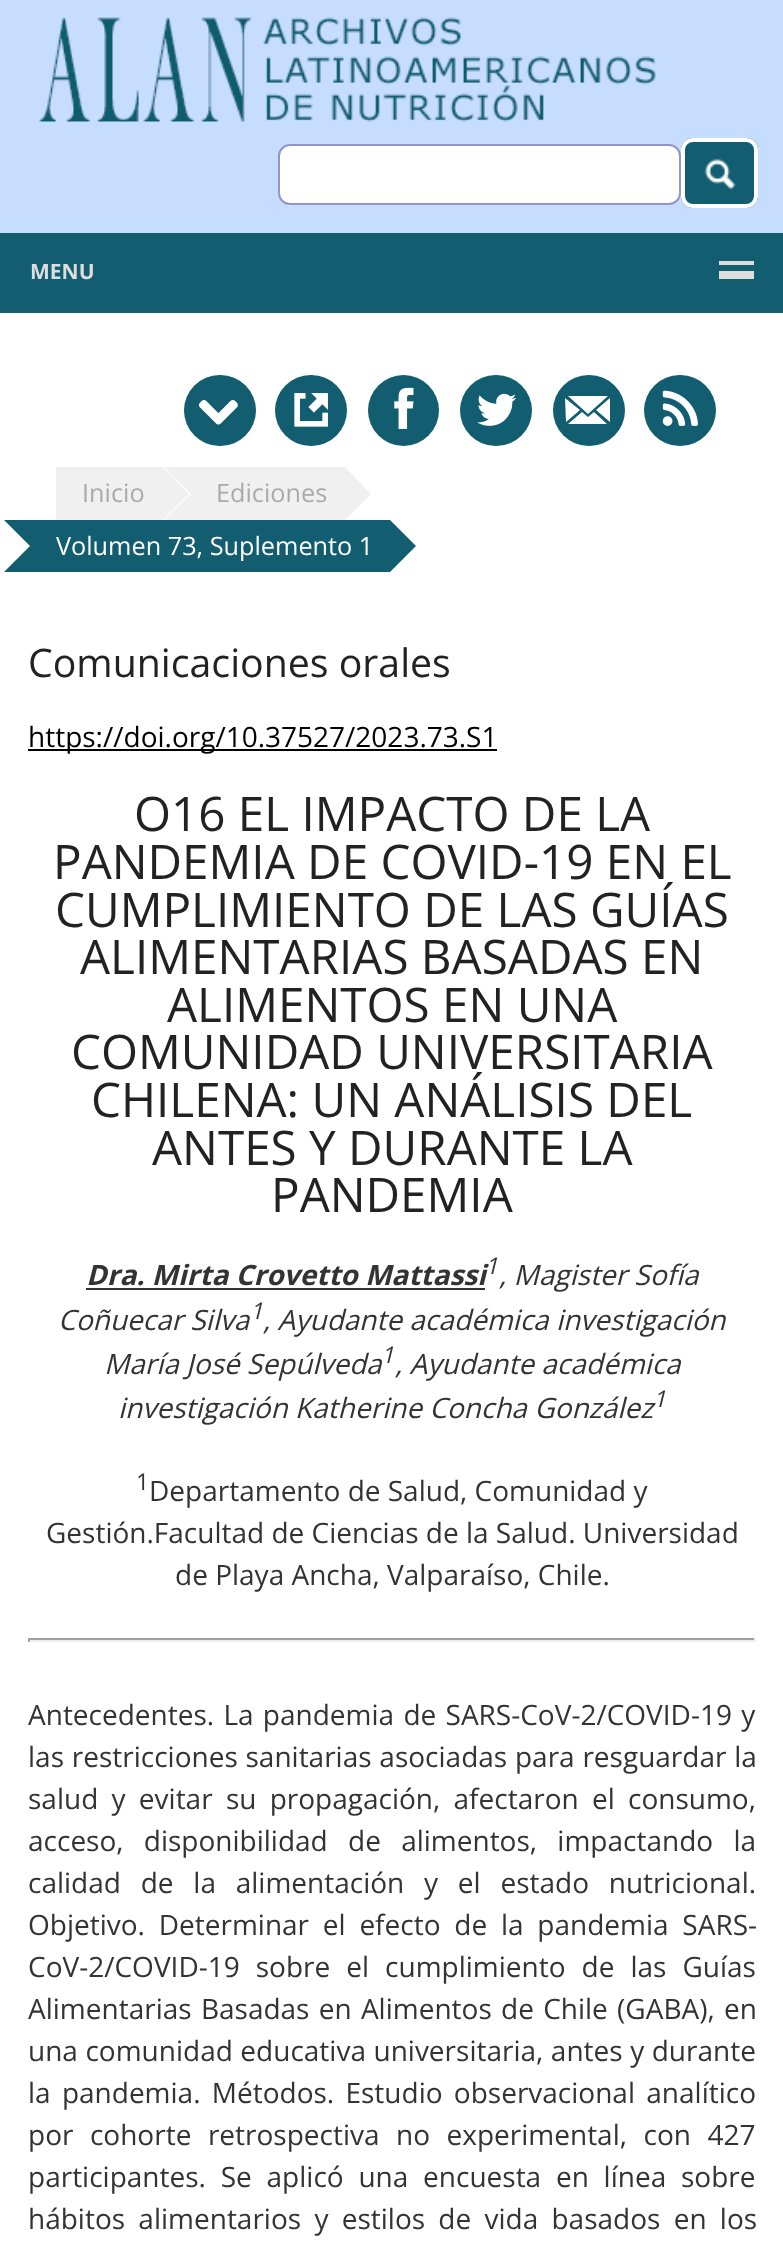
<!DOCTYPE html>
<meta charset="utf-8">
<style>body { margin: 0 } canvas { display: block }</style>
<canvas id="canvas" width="783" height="2252"></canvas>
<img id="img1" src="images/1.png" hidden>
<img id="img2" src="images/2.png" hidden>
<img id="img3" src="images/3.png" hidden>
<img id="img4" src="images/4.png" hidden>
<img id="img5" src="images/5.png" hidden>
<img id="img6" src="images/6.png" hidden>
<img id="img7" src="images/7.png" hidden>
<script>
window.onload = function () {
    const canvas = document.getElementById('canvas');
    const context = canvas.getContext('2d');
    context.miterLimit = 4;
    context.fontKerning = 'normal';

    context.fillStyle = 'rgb(198, 221, 253)';
    context.fillRect(0, 0, 783, 2252);
    context.drawImage(document.getElementById('img1'), 39, 17, 617, 105);
    context.fillStyle = 'rgb(255, 255, 255)';
    context.beginPath();
    context.roundRect(279, 145, 401, 59, 11);
    context.fill();
    context.strokeStyle = 'rgb(146, 149, 201)';
    context.lineWidth = 2;
    context.stroke();
    context.fillStyle = 'rgb(18, 93, 111)';
    context.beginPath();
    context.roundRect(681, 138, 77, 70, 12);
    context.fill();
    context.drawImage(document.getElementById('img2'), 704, 158, 32, 32);
    context.beginPath();
    context.roundRect(683, 140, 73, 66, 10);
    context.strokeStyle = 'rgb(255, 255, 255)';
    context.lineWidth = 4;
    context.stroke();
    context.fillRect(0, 233, 783, 80);
    context.fillStyle = 'rgb(221, 221, 221)';
    context.fillRect(719, 261, 35, 4);
    context.fillRect(719, 271, 35, 8);
    context.fillStyle = 'rgb(255, 255, 255)';
    context.fillRect(0, 313, 783, 1939);
    context.fillStyle = 'rgb(18, 93, 111)';
    context.beginPath();
    context.roundRect(184, 375, 72, 71, 35.5);
    context.fill();
    context.drawImage(document.getElementById('img3'), 198, 400, 40, 25);
    context.beginPath();
    context.roundRect(275, 375, 72, 71, 35.5);
    context.fill();
    context.drawImage(document.getElementById('img4'), 294, 393, 34, 34);
    context.beginPath();
    context.arc(403.5, 410.5, 35.5, 0, 2 * Math.PI);
    context.fill();
    context.drawImage(document.getElementById('img5'), 394, 387, 20, 42);
    context.beginPath();
    context.roundRect(460, 375, 72, 71, 35.5);
    context.fill();
    context.drawImage(document.getElementById('img6'), 477, 393, 40, 33);
    context.beginPath();
    context.roundRect(553, 375, 72, 71, 35.5);
    context.fill();
    context.fillStyle = 'rgb(255, 255, 255)';
    context.beginPath();
    context.moveTo(608, 396);
    context.lineTo(588, 414);
    context.lineTo(568, 396);
    context.closePath();
    context.moveTo(610, 398);
    context.lineTo(610, 422);
    context.lineTo(596, 410);
    context.closePath();
    context.moveTo(565, 398);
    context.lineTo(580, 410);
    context.lineTo(566, 422);
    context.closePath();
    context.moveTo(588, 417);
    context.lineTo(594, 412);
    context.lineTo(607, 424);
    context.lineTo(568, 424);
    context.lineTo(582, 412);
    context.closePath();
    context.fill();
    context.fillStyle = 'rgb(18, 93, 111)';
    context.beginPath();
    context.roundRect(644, 375, 72, 71, 35.5);
    context.fill();
    context.drawImage(document.getElementById('img7'), 662, 390, 36, 36);
    context.fillStyle = 'rgb(240, 240, 240)';
    context.fillRect(56, 467, 107, 53);
    context.beginPath();
    context.moveTo(163, 520);
    context.lineTo(163, 467);
    context.lineTo(189, 494);
    context.closePath();
    context.fill();
    context.fillRect(217, 467, 128, 53);
    context.beginPath();
    context.moveTo(164, 467);
    context.lineTo(217, 467);
    context.lineTo(191, 494);
    context.closePath();
    context.fill();
    context.fillRect(191, 467, 26, 53);
    context.beginPath();
    context.moveTo(217, 520);
    context.lineTo(164, 520);
    context.lineTo(191, 494);
    context.closePath();
    context.fill();
    context.beginPath();
    context.moveTo(345, 520);
    context.lineTo(345, 467);
    context.lineTo(371, 494);
    context.closePath();
    context.fill();
    context.fillStyle = 'rgb(18, 93, 111)';
    context.fillRect(56, 520, 334, 52);
    context.beginPath();
    context.moveTo(4, 520);
    context.lineTo(56, 520);
    context.lineTo(30, 546);
    context.closePath();
    context.fill();
    context.fillRect(30, 520, 26, 52);
    context.beginPath();
    context.moveTo(56, 572);
    context.lineTo(4, 572);
    context.lineTo(30, 546);
    context.closePath();
    context.fill();
    context.beginPath();
    context.moveTo(390, 572);
    context.lineTo(390, 520);
    context.lineTo(416, 546);
    context.closePath();
    context.fill();
    context.fillStyle = 'rgb(0, 0, 0)';
    context.fillRect(28, 749, 469, 2);
    context.fillStyle = 'rgb(51, 51, 51)';
    context.fillRect(86, 1288, 399, 2);
    context.fillStyle = 'rgb(159, 159, 159)';
    context.fillRect(28, 1638, 728, 2);
    context.fillStyle = 'rgb(238, 238, 238)';
    context.fillRect(754, 1638, 2, 4);
    context.fillRect(28, 1640, 728, 2);
    context.fillStyle = 'rgb(159, 159, 159)';
    context.fillRect(28, 1638, 2, 4);
    context.font = 'bold 21px Open Sans';
    context.fillStyle = 'rgb(221, 221, 221)';
    context.fillText('MENU', 30, 279);
    context.font = '25.25px Open Sans';
    context.fillStyle = 'rgb(170, 170, 170)';
    context.fillText('Inicio', 82, 502);
    context.fillText('Ediciones', 216, 502);
    context.fillStyle = 'rgb(255, 255, 255)';
    context.fillText('Volumen 73, Suplemento 1', 56, 555);
    context.font = '39.25px Open Sans';
    context.fillStyle = 'rgb(34, 34, 34)';
    context.fillText('Comunicaciones orales', 28, 677);
    context.font = '28px Open Sans';
    context.fillStyle = 'rgb(0, 0, 0)';
    context.fillText('https://doi.org/10.37527/2023.73.S1', 28, 747);
    context.font = '47.6px Open Sans';
    context.fillStyle = 'rgb(34, 34, 34)';
    context.fillText('O16 EL IMPACTO DE LA', 134, 831);
    context.fillText('PANDEMIA DE COVID-19 EN EL', 53, 879);
    context.fillText('CUMPLIMIENTO DE LAS GUÍAS', 55, 927);
    context.fillText('ALIMENTARIAS BASADAS EN', 80, 974);
    context.fillText('ALIMENTOS EN UNA', 167, 1022);
    context.fillText('COMUNIDAD UNIVERSITARIA', 71, 1069);
    context.fillText('CHILENA: UN ANÁLISIS DEL', 91, 1117);
    context.fillText('ANTES Y DURANTE LA', 152, 1165);
    context.fillText('PANDEMIA', 271, 1212);
    context.font = 'italic bold 28px Open Sans';
    context.fillStyle = 'rgb(51, 51, 51)';
    context.fillText('Dra. Mirta Crovetto Mattassi', 86, 1285);
    context.font = 'italic 23px Open Sans';
    context.fillText('1', 485, 1274);
    context.font = 'italic 28px Open Sans';
    context.fillText(', Magister Sofía', 499, 1285);
    context.fillText('Coñuecar Silva', 58, 1330);
    context.font = 'italic 23px Open Sans';
    context.fillText('1', 250, 1319);
    context.font = 'italic 28px Open Sans';
    context.fillText(', Ayudante académica investigación', 263, 1330);
    context.fillText('María José Sepúlveda', 104, 1374);
    context.font = 'italic 23px Open Sans';
    context.fillText('1', 381, 1363);
    context.font = 'italic 28px Open Sans';
    context.fillText(', Ayudante académica', 395, 1374);
    context.fillText('investigación Katherine Concha González', 118, 1418);
    context.font = 'italic 23px Open Sans';
    context.fillText('1', 653, 1407);
    context.font = '23px Open Sans';
    context.fillText('1', 136, 1490);
    context.font = '28px Open Sans';
    context.fillText('Departamento de Salud, Comunidad y', 149, 1501);
    context.fillText('Gestión.Facultad de Ciencias de la Salud. Universidad', 46, 1543);
    context.fillText('de Playa Ancha, Valparaíso, Chile.', 175, 1585);
    context.wordSpacing = '2px';
    context.fillText('Antecedentes. La pandemia de SARS-CoV-2/COVID-19 y', 28, 1725);
    context.wordSpacing = '0.5px';
    context.fillText('las restricciones sanitarias asociadas para resguardar la', 28, 1767);
    context.wordSpacing = '6px';
    context.fillText('salud y evitar su propagación, afectaron el consumo,', 28, 1809);
    context.wordSpacing = '13px';
    context.fillText('acceso, disponibilidad de alimentos, impactando la', 28, 1851);
    context.wordSpacing = '12.5px';
    context.fillText('calidad de la alimentación y el estado nutricional.', 28, 1893);
    context.wordSpacing = '6.5px';
    context.fillText('Objetivo. Determinar el efecto de la pandemia SARS-', 28, 1935);
    context.wordSpacing = '8.75px';
    context.fillText('CoV-2/COVID-19 sobre el cumplimiento de las Guías', 28, 1977);
    context.wordSpacing = '2px';
    context.fillText('Alimentarias Basadas en Alimentos de Chile (GABA), en', 28, 2019);
    context.wordSpacing = '0.25px';
    context.fillText('una comunidad educativa universitaria, antes y durante', 28, 2061);
    context.wordSpacing = '4px';
    context.fillText('la pandemia. Métodos. Estudio observacional analítico', 28, 2103);
    context.wordSpacing = '9.25px';
    context.fillText('por cohorte retrospectiva no experimental, con 427', 28, 2145);
    context.wordSpacing = '7.5px';
    context.fillText('participantes. Se aplicó una encuesta en línea sobre', 28, 2187);
    context.wordSpacing = '6px';
    context.fillText('hábitos alimentarios y estilos de vida basados en los', 28, 2229);
};
</script>
